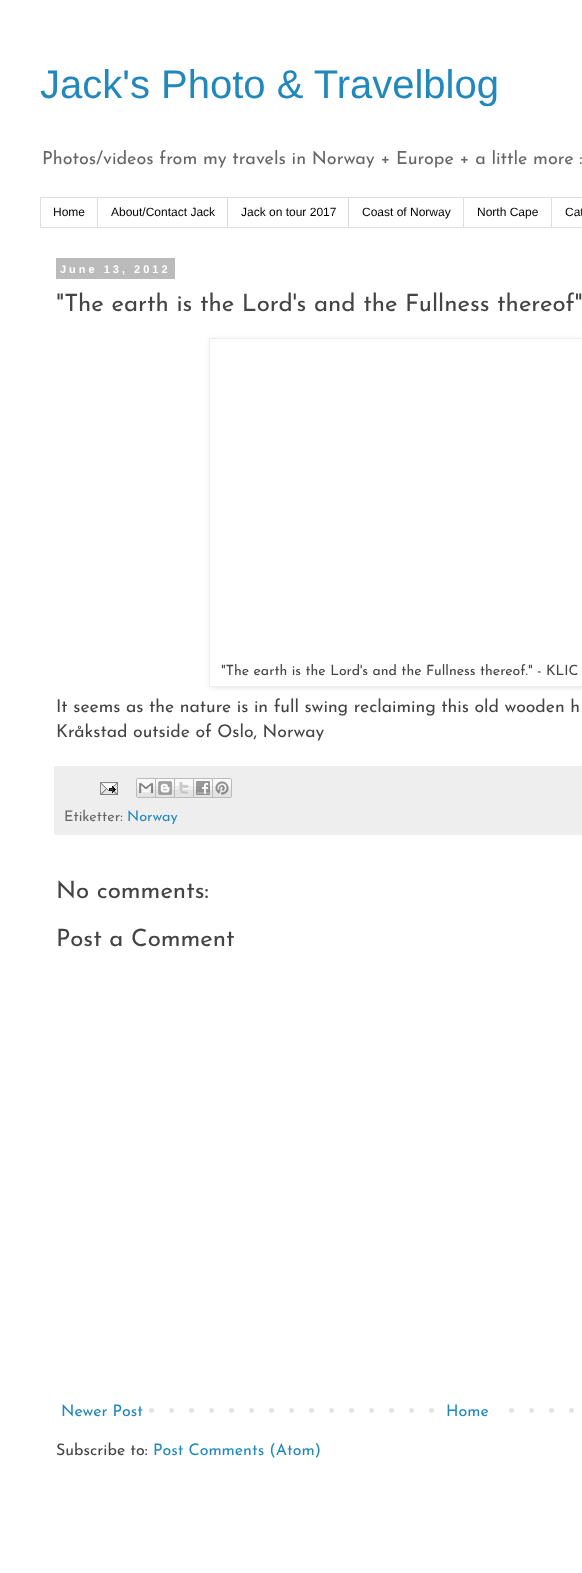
<!DOCTYPE html>
<meta charset="utf-8">
<style>body { margin: 0 } canvas { display: block }</style>
<canvas id="canvas" width="582" height="1573"></canvas>
<img id="img1" src="images/1.png" hidden>
<img id="img2" src="images/2.png" hidden>
<img id="img3" src="images/3.png" hidden>
<img id="img4" src="images/4.png" hidden>
<img id="img5" src="images/5.png" hidden>
<img id="img6" src="images/6.png" hidden>
<img id="img7" src="images/7.png" hidden>
<script>
window.onload = function () {
    const canvas = document.getElementById('canvas');
    const context = canvas.getContext('2d');
    context.miterLimit = 4;
    context.fontKerning = 'normal';

    context.fillStyle = 'rgb(255, 255, 255)';
    context.fillRect(0, 0, 582, 1573);
    context.strokeStyle = 'rgb(221, 221, 221)';
    context.strokeRect(40.5, 197.5, 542, 30);
    context.fillStyle = 'rgb(221, 221, 221)';
    context.fillRect(97, 198, 1, 29);
    context.fillRect(227, 198, 1, 29);
    context.fillRect(348, 198, 1, 29);
    context.fillRect(463, 198, 1, 29);
    context.fillRect(551, 198, 1, 29);
    context.fillStyle = 'rgb(187, 187, 187)';
    context.fillRect(56, 258, 119, 21);
    context.save();
    context.beginPath();
    context.moveTo(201, 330);
    context.lineTo(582, 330);
    context.lineTo(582, 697);
    context.lineTo(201, 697);
    context.closePath();
    context.moveTo(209, 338);
    context.lineTo(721, 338);
    context.lineTo(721, 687);
    context.lineTo(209, 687);
    context.closePath();
    context.clip('evenodd');
    context.fillStyle = 'rgba(0, 0, 0, 0.1)';
    context.filter = 'blur(2.5px)';
    context.beginPath();
    context.rect(210, 339, 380, 349);
    context.fill();
    context.filter = 'none';
    context.restore();
    context.strokeStyle = 'rgb(238, 238, 238)';
    context.strokeRect(209.5, 338.5, 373, 348);
    context.fillStyle = 'rgb(238, 238, 238)';
    context.fillRect(54, 766, 528, 69);
    context.drawImage(document.getElementById('img1'), 100, 782, 18, 13);
    context.drawImage(document.getElementById('img2'), 136, 778, 20, 20);
    context.drawImage(document.getElementById('img3'), 156, 778, 19, 20);
    context.drawImage(document.getElementById('img4'), 175, 778, 19, 20);
    context.drawImage(document.getElementById('img5'), 194, 778, 19, 20);
    context.drawImage(document.getElementById('img6'), 213, 778, 19, 20);
    context.drawImage(document.getElementById('img7'), 149, 1408, 425, 5);
    context.fillStyle = 'rgb(255, 255, 255)';
    context.fillRect(449, 1408, 45, 5);
    context.font = '40px Liberation Sans';
    context.fillStyle = 'rgb(34, 136, 187)';
    context.fillText('Jack\'s Photo & Travelblog', 40, 98);
    context.font = '100 18px Josefin Sans';
    context.fillStyle = 'rgb(102, 102, 102)';
    context.fillText('Photos/videos from my travels in Norway + Europe + a little more :', 42, 164);
    context.font = '12px Liberation Sans';
    context.fillStyle = 'rgb(0, 0, 0)';
    context.fillText('Home', 53, 216);
    context.fillText('About/Contact Jack', 111, 216);
    context.fillText('Jack on tour 2017', 241, 216);
    context.fillText('Coast of Norway', 362, 216);
    context.fillText('North Cape', 477, 216);
    context.fillText('Cat', 565, 216);
    context.letterSpacing = '3px';
    context.font = 'bold 11px Liberation Sans';
    context.fillStyle = 'rgb(255, 255, 255)';
    context.fillText('June 13, 2012', 60, 273);
    context.letterSpacing = '0px';
    context.font = '100 24px Josefin Sans';
    context.fillStyle = 'rgb(68, 68, 68)';
    context.fillText('"The earth is the Lord\'s and the Fullness thereof"', 56, 311);
    context.font = '100 14.1px Josefin Sans';
    context.fillText('"The earth is the Lord\'s and the Fullness thereof." - KLIC', 221, 675);
    context.font = '100 17.6px Josefin Sans';
    context.fillText('It seems as the nature is in full swing reclaiming this old wooden h', 56, 712);
    context.fillText('Kråkstad outside of Oslo, Norway', 56, 737);
    context.font = '100 14.5px Josefin Sans';
    context.fillStyle = 'rgb(102, 102, 102)';
    context.fillText('Etiketter:', 64, 821);
    context.fillStyle = 'rgb(34, 136, 187)';
    context.fillText('Norway', 127, 821);
    context.font = '100 24px Josefin Sans';
    context.fillStyle = 'rgb(68, 68, 68)';
    context.fillText('No comments:', 56, 898);
    context.fillText('Post a Comment', 56, 946);
    context.font = '100 16px Josefin Sans';
    context.fillStyle = 'rgb(34, 136, 187)';
    context.fillText('Newer Post', 61, 1416);
    context.fillText('Home', 446, 1416);
    context.fillStyle = 'rgb(68, 68, 68)';
    context.fillText('Subscribe to:', 56, 1455);
    context.fillStyle = 'rgb(34, 136, 187)';
    context.fillText('Post Comments (Atom)', 153, 1455);
};
</script>
